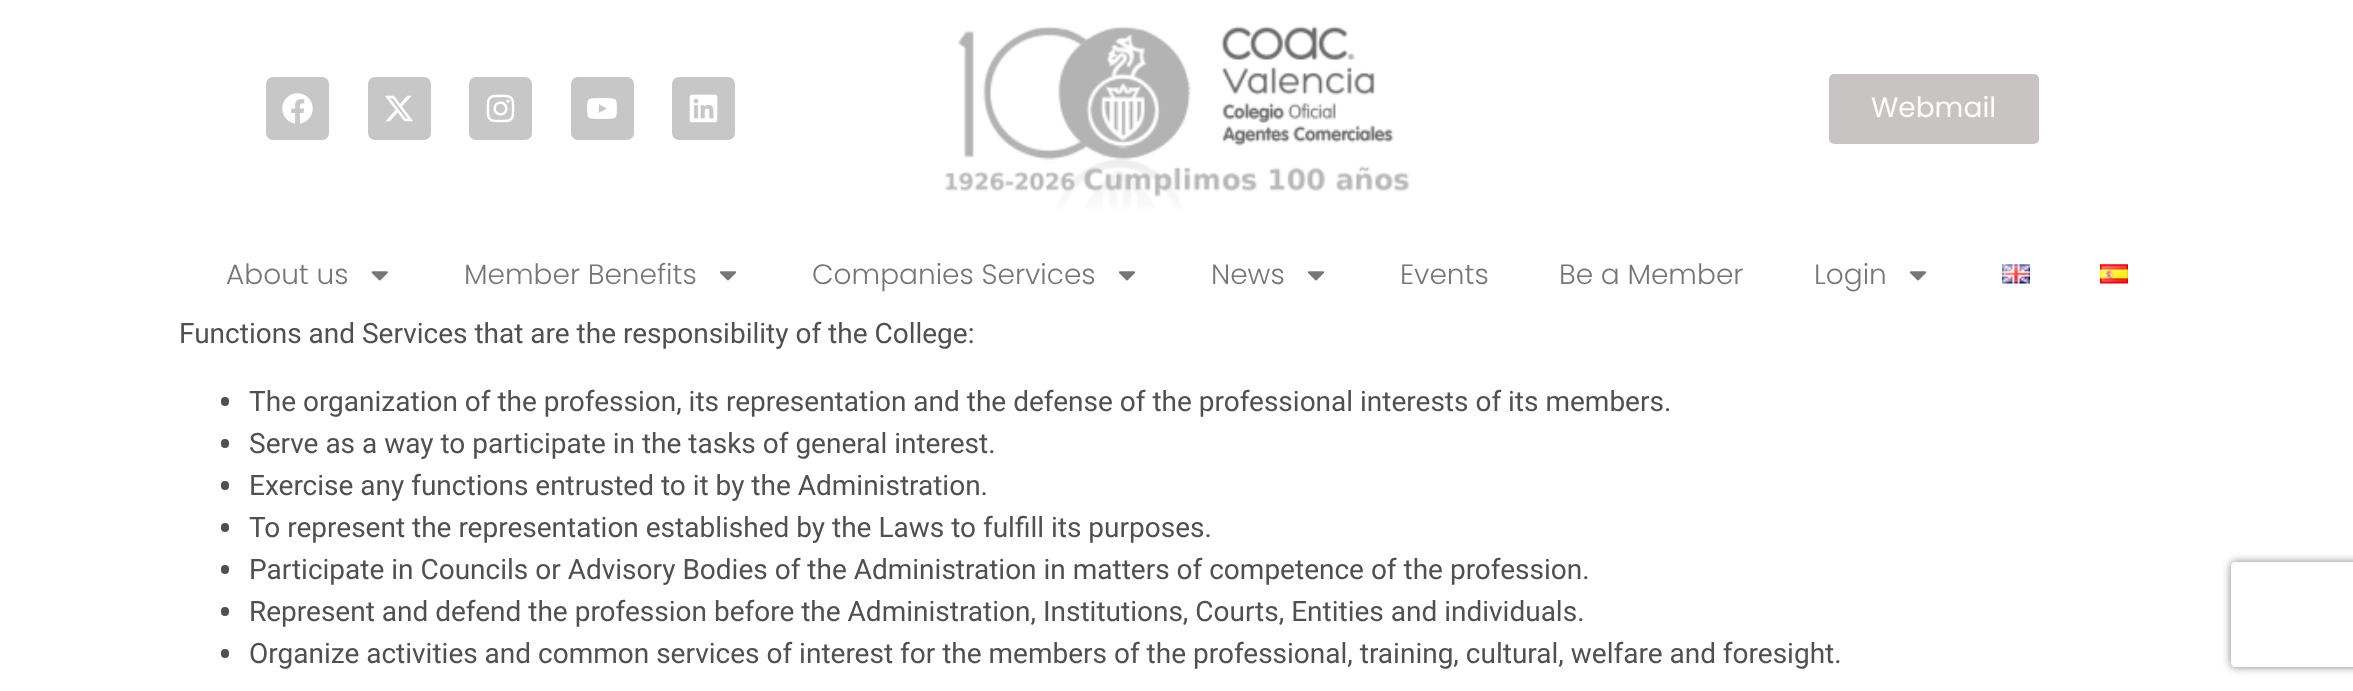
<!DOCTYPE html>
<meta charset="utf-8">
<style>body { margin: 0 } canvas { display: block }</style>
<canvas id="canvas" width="2353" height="691"></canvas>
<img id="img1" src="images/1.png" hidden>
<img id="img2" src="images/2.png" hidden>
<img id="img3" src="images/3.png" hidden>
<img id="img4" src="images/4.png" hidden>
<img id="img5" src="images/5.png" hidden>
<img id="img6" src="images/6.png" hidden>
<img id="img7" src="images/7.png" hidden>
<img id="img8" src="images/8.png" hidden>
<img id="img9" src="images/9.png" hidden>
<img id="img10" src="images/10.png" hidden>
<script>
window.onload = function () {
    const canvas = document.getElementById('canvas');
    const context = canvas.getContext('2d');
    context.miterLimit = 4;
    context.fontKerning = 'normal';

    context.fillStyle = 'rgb(255, 255, 255)';
    context.fillRect(0, 0, 2353, 691);
    context.fillStyle = 'rgb(199, 199, 199)';
    context.beginPath();
    context.roundRect(266, 77, 63, 63, 7);
    context.fill();
    context.drawImage(document.getElementById('img1'), 282, 93, 31, 31);
    context.beginPath();
    context.roundRect(368, 77, 63, 63, 7);
    context.fill();
    context.drawImage(document.getElementById('img2'), 385, 95, 28, 27);
    context.beginPath();
    context.roundRect(469, 77, 63, 63, 7);
    context.fill();
    context.drawImage(document.getElementById('img3'), 486, 94, 29, 29);
    context.beginPath();
    context.roundRect(571, 77, 63, 63, 7);
    context.fill();
    context.drawImage(document.getElementById('img4'), 587, 98, 30, 21);
    context.beginPath();
    context.roundRect(672, 77, 63, 63, 7);
    context.fill();
    context.drawImage(document.getElementById('img5'), 689, 94, 29, 29);
    context.drawImage(document.getElementById('img6'), 944, 26, 466, 183);
    context.fillStyle = 'rgb(201, 196, 196)';
    context.beginPath();
    context.roundRect(1829, 74, 210, 70, 5);
    context.fill();
    context.drawImage(document.getElementById('img7'), 371, 271, 17, 10);
    context.drawImage(document.getElementById('img8'), 719, 271, 18, 10);
    context.drawImage(document.getElementById('img8'), 1118, 271, 18, 10);
    context.drawImage(document.getElementById('img8'), 1307, 271, 18, 10);
    context.drawImage(document.getElementById('img8'), 1909, 271, 18, 10);
    context.drawImage(document.getElementById('img9'), 2002, 264, 28, 20);
    context.drawImage(document.getElementById('img10'), 2100, 264, 28, 20);
    context.fillStyle = 'rgb(80, 80, 82)';
    context.beginPath();
    context.roundRect(221, 397, 8, 9, 4);
    context.fill();
    context.beginPath();
    context.roundRect(221, 439, 8, 9, 4);
    context.fill();
    context.beginPath();
    context.roundRect(221, 481, 8, 9, 4);
    context.fill();
    context.beginPath();
    context.roundRect(221, 523, 8, 9, 4);
    context.fill();
    context.beginPath();
    context.roundRect(221, 565, 8, 9, 4);
    context.fill();
    context.beginPath();
    context.roundRect(221, 607, 8, 9, 4);
    context.fill();
    context.beginPath();
    context.roundRect(221, 649, 8, 9, 4);
    context.fill();
    context.save();
    context.beginPath();
    context.moveTo(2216, 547);
    context.lineTo(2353, 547);
    context.lineTo(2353, 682);
    context.lineTo(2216, 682);
    context.closePath();
    context.moveTo(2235, 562);
    context.lineTo(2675, 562);
    context.bezierCurveTo(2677, 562, 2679, 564, 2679, 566);
    context.lineTo(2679, 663);
    context.bezierCurveTo(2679, 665, 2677, 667, 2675, 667);
    context.lineTo(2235, 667);
    context.bezierCurveTo(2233, 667, 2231, 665, 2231, 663);
    context.lineTo(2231, 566);
    context.bezierCurveTo(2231, 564, 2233, 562, 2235, 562);
    context.closePath();
    context.clip('evenodd');
    context.fillStyle = 'rgb(128, 128, 128)';
    context.filter = 'blur(4.5px)';
    context.beginPath();
    context.roundRect(2231, 562, 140, 105, 4);
    context.fill();
    context.filter = 'none';
    context.restore();
    context.font = '28px Poppins';
    context.fillStyle = 'rgb(253, 253, 253)';
    context.fillText('Webmail', 1871, 117);
    context.font = '300 28px Poppins';
    context.fillStyle = 'rgb(118, 118, 118)';
    context.fillText('About us', 226, 284);
    context.fillText('Member Benefits', 464, 284);
    context.fillText('Companies Services', 812, 284);
    context.fillText('News', 1211, 284);
    context.fillText('Events', 1400, 284);
    context.fillText('Be a Member', 1559, 284);
    context.fillText('Login', 1814, 284);
    context.font = '28px Roboto';
    context.fillStyle = 'rgb(80, 80, 82)';
    context.fillText('Functions and Services that are the responsibility of the College:', 179, 343);
    context.fillText('The organization of the profession, its representation and the defense of the professional interests of its members.', 249, 411);
    context.fillText('Serve as a way to participate in the tasks of general interest.', 249, 453);
    context.fillText('Exercise any functions entrusted to it by the Administration.', 249, 495);
    context.fillText('To represent the representation established by the Laws to fulfill its purposes.', 249, 537);
    context.fillText('Participate in Councils or Advisory Bodies of the Administration in matters of competence of the profession.', 249, 579);
    context.fillText('Represent and defend the profession before the Administration, Institutions, Courts, Entities and individuals.', 249, 621);
    context.fillText('Organize activities and common services of interest for the members of the professional, training, cultural, welfare and foresight.', 249, 663);
};
</script>
